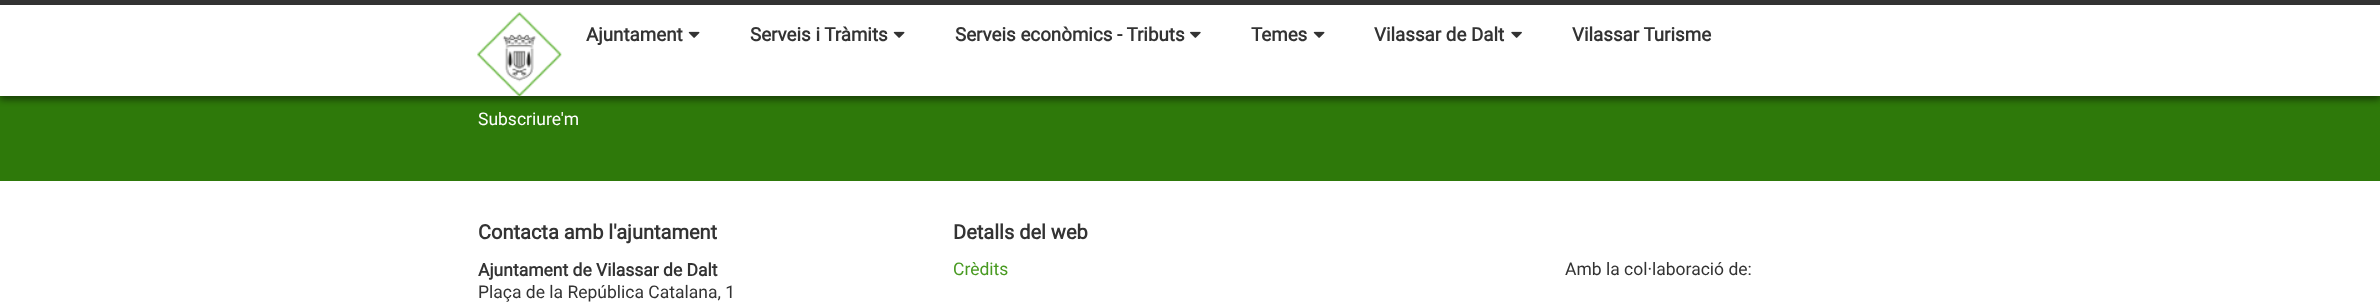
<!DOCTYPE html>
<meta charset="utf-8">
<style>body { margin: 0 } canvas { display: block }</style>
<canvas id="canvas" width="2380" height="307"></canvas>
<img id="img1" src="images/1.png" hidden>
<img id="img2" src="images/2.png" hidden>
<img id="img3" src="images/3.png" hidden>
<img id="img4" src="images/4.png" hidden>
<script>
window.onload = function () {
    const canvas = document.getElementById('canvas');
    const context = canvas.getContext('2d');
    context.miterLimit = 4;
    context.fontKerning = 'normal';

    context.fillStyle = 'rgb(255, 255, 255)';
    context.fillRect(0, 0, 2380, 307);
    context.fillStyle = 'rgb(51, 51, 51)';
    context.fillRect(0, 0, 2380, 5);
    context.fillStyle = 'rgb(46, 121, 10)';
    context.fillRect(0, 96, 2380, 85);
    context.save();
    context.beginPath();
    context.moveTo(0, 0);
    context.lineTo(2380, 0);
    context.lineTo(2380, 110);
    context.lineTo(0, 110);
    context.closePath();
    context.moveTo(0, 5);
    context.lineTo(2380, 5);
    context.lineTo(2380, 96);
    context.lineTo(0, 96);
    context.closePath();
    context.clip('evenodd');
    context.fillStyle = 'rgba(0, 0, 0, 0.45)';
    context.filter = 'blur(3px)';
    context.beginPath();
    context.rect(0, 9, 2380, 91);
    context.fill();
    context.filter = 'none';
    context.restore();
    context.drawImage(document.getElementById('img1'), 477, 12, 85, 85);
    context.drawImage(document.getElementById('img2'), 688, 31, 12, 7);
    context.drawImage(document.getElementById('img2'), 893, 31, 12, 7);
    context.drawImage(document.getElementById('img3'), 1190, 31, 11, 7);
    context.drawImage(document.getElementById('img2'), 1313, 31, 12, 7);
    context.drawImage(document.getElementById('img4'), 1511, 31, 11, 7);
    context.font = 'bold 18.75px Roboto';
    context.fillStyle = 'rgb(51, 51, 51)';
    context.fillText('Ajuntament', 586, 41);
    context.fillText('Serveis i Tràmits', 750, 41);
    context.fillText('Serveis econòmics - Tributs', 955, 41);
    context.fillText('Temes', 1251, 41);
    context.fillText('Vilassar de Dalt', 1374, 41);
    context.fillText('Vilassar Turisme', 1572, 41);
    context.font = '17.5px Roboto';
    context.fillStyle = 'rgb(255, 255, 255)';
    context.fillText('Subscriure\'m', 478, 125);
    context.font = 'bold 20px Roboto';
    context.fillStyle = 'rgb(51, 51, 51)';
    context.fillText('Contacta amb l\'ajuntament', 478, 239);
    context.font = 'bold 17.5px Roboto';
    context.fillText('Ajuntament de Vilassar de Dalt', 478, 276);
    context.font = '17.5px Roboto';
    context.fillText('Plaça de la República Catalana, 1', 478, 298);
    context.font = 'bold 20px Roboto';
    context.fillText('Detalls del web', 953, 239);
    context.font = '17.5px Roboto';
    context.fillStyle = 'rgb(72, 154, 33)';
    context.fillText('Crèdits', 953, 275);
    context.fillStyle = 'rgb(51, 51, 51)';
    context.fillText('Amb la col·laboració de:', 1565, 275);
};
</script>
